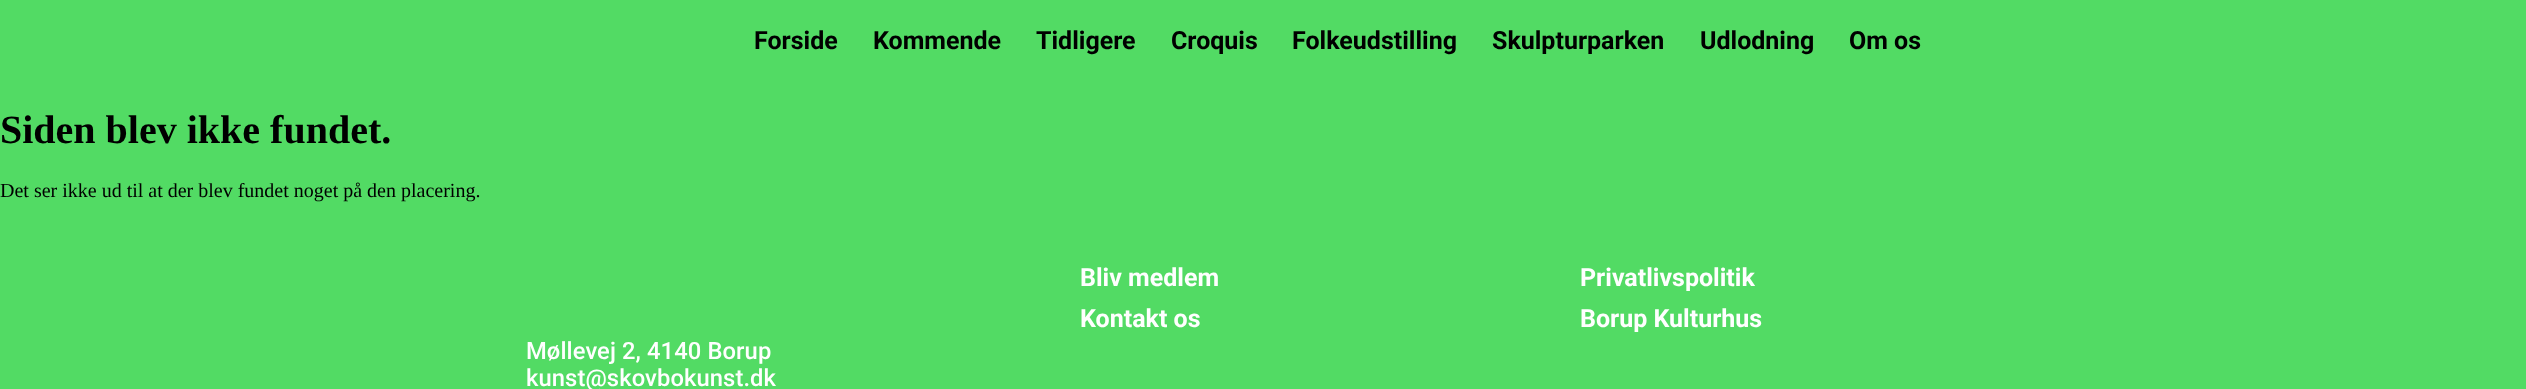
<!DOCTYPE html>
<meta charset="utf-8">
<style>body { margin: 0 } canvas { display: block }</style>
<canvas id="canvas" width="2526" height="389"></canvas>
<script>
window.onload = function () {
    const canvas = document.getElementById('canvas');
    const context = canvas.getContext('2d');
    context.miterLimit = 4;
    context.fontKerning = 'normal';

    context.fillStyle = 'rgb(82, 219, 100)';
    context.fillRect(0, 0, 2526, 389);
    context.font = 'bold 25px Roboto';
    context.fillStyle = 'rgb(0, 0, 0)';
    context.fillText('Forside', 754, 49);
    context.fillText('Kommende', 873, 49);
    context.fillText('Tidligere', 1036, 49);
    context.fillText('Croquis', 1171, 49);
    context.fillText('Folkeudstilling', 1292, 49);
    context.fillText('Skulpturparken', 1492, 49);
    context.fillText('Udlodning', 1700, 49);
    context.fillText('Om os', 1849, 49);
    context.font = 'bold 40px Liberation Serif';
    context.fillText('Siden blev ikke fundet.', 0, 143);
    context.font = '20px Liberation Serif';
    context.fillText('Det ser ikke ud til at der blev fundet noget på den placering.', 0, 197);
    context.font = 'bold 25px Roboto';
    context.fillStyle = 'rgb(255, 255, 255)';
    context.fillText('Bliv medlem', 1080, 286);
    context.fillText('Kontakt os', 1080, 327);
    context.fillText('Privatlivspolitik', 1580, 286);
    context.fillText('Borup Kulturhus', 1580, 327);
    context.letterSpacing = '0.1px';
    context.font = '500 23.75px Roboto';
    context.fillText('Møllevej 2, 4140 Borup', 526, 359);
    context.fillText('kunst@skovbokunst.dk', 526, 386);
};
</script>
